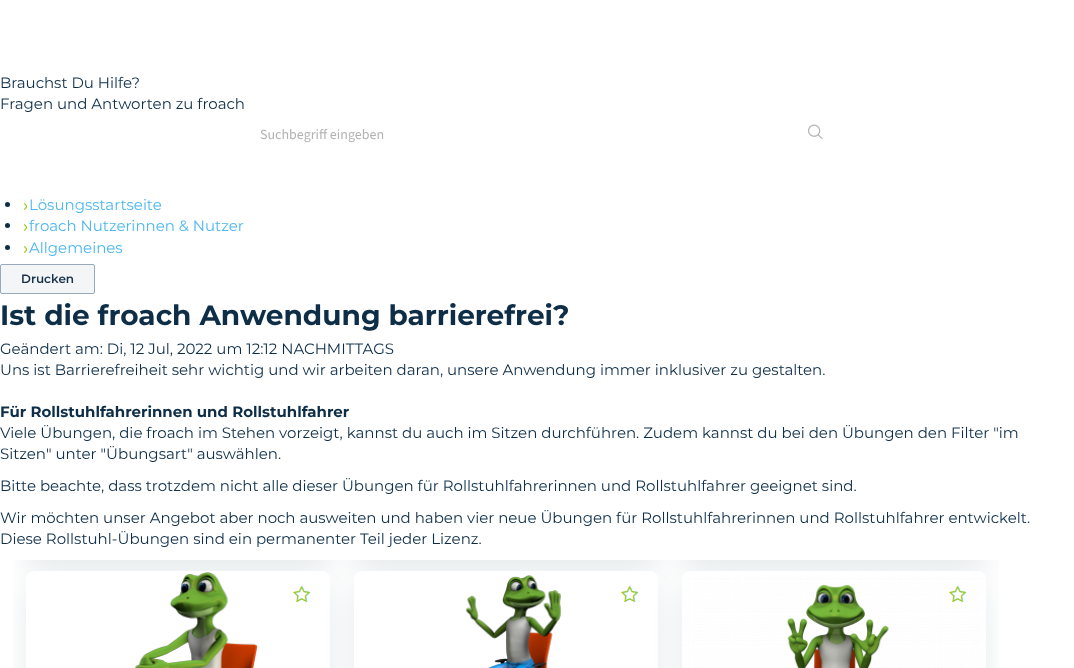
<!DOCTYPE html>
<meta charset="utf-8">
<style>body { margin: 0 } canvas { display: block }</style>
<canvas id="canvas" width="1074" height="668"></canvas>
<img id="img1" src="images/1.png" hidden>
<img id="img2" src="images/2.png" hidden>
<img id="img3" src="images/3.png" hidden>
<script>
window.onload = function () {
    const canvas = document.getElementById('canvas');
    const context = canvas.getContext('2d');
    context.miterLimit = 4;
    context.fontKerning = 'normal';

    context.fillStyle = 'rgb(255, 255, 255)';
    context.fillRect(0, 0, 1074, 668);
    context.drawImage(document.getElementById('img1'), 808, 124, 15, 15);
    context.fillStyle = 'rgb(14, 46, 71)';
    context.beginPath();
    context.arc(7.5, 204.5, 2.5, 0, 2 * Math.PI);
    context.fill();
    context.drawImage(document.getElementById('img2'), 24, 203, 3, 7);
    context.beginPath();
    context.arc(7.5, 225.5, 2.5, 0, 2 * Math.PI);
    context.fill();
    context.drawImage(document.getElementById('img2'), 24, 224, 3, 7);
    context.beginPath();
    context.arc(7.5, 247.5, 2.5, 0, 2 * Math.PI);
    context.fill();
    context.drawImage(document.getElementById('img2'), 24, 246, 3, 7);
    context.fillStyle = 'rgb(243, 245, 247)';
    context.beginPath();
    context.roundRect(0.5, 264.5, 94, 29, 1.5);
    context.fill();
    context.strokeStyle = 'rgb(151, 169, 186)';
    context.stroke();
    context.drawImage(document.getElementById('img3'), 13, 560, 986, 108);
    context.font = '15px Montserrat';
    context.fillStyle = 'rgb(14, 46, 71)';
    context.fillText('Brauchst Du Hilfe?', 0, 88);
    context.fillText('Fragen und Antworten zu froach', 0, 109);
    context.font = '14px Source Sans Pro';
    context.fillStyle = 'rgb(178, 178, 178)';
    context.fillText('Suchbegriff eingeben', 260, 139);
    context.font = '15px Montserrat';
    context.fillStyle = 'rgb(77, 183, 240)';
    context.fillText('Lösungsstartseite', 29, 210);
    context.fillText('froach Nutzerinnen & Nutzer', 29, 231);
    context.fillText('Allgemeines', 29, 253);
    context.font = '600 12px Montserrat';
    context.fillStyle = 'rgb(24, 50, 71)';
    context.fillText('Drucken', 21, 283);
    context.font = 'bold 28px Montserrat';
    context.fillStyle = 'rgb(14, 46, 71)';
    context.fillText('Ist die froach Anwendung barrierefrei?', 0, 325);
    context.font = '15px Montserrat';
    context.fillText('Geändert am: Di, 12 Jul, 2022 um 12:12 NACHMITTAGS', 0, 354);
    context.fillText('Uns ist Barrierefreiheit sehr wichtig und wir arbeiten daran, unsere Anwendung immer inklusiver zu gestalten.', 0, 375);
    context.font = 'bold 15px Montserrat';
    context.fillText('Für Rollstuhlfahrerinnen und Rollstuhlfahrer', 0, 417);
    context.font = '15px Montserrat';
    context.fillText('Viele Übungen, die froach im Stehen vorzeigt, kannst du auch im Sitzen durchführen. Zudem kannst du bei den Übungen den Filter "im', 0, 438);
    context.fillText('Sitzen" unter "Übungsart" auswählen.', 0, 459);
    context.fillText('Bitte beachte, dass trotzdem nicht alle dieser Übungen für Rollstuhlfahrerinnen und Rollstuhlfahrer geeignet sind.', 0, 491);
    context.fillText('Wir möchten unser Angebot aber noch ausweiten und haben vier neue Übungen für Rollstuhlfahrerinnen und Rollstuhlfahrer entwickelt.', 0, 523);
    context.fillText('Diese Rollstuhl-Übungen sind ein permanenter Teil jeder Lizenz.', 0, 544);
};
</script>
